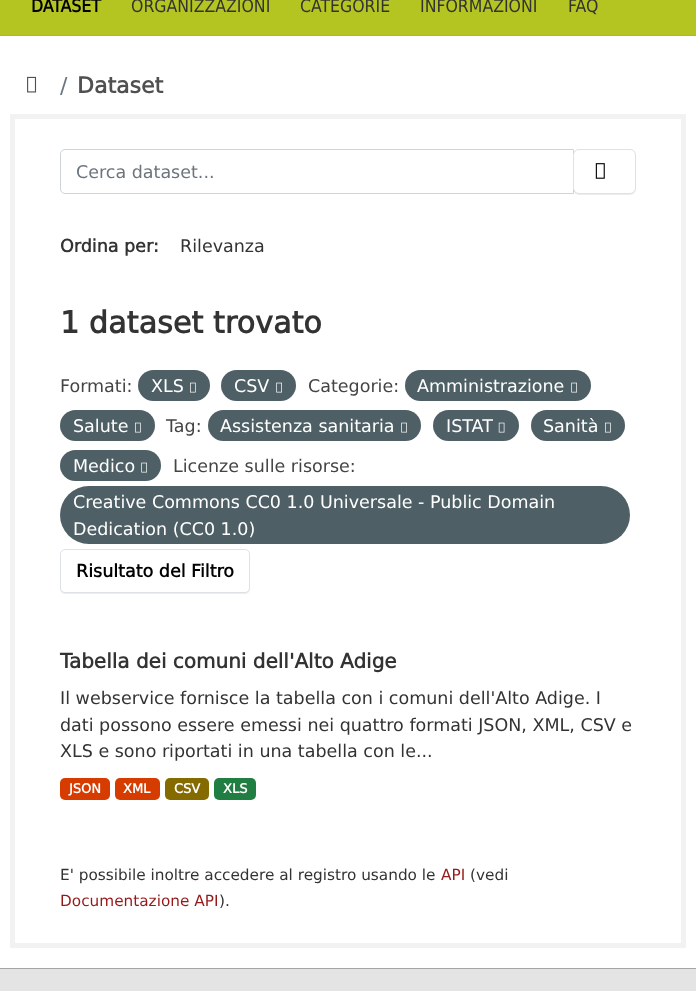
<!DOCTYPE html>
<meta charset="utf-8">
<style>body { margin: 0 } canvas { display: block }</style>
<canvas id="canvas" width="696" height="991"></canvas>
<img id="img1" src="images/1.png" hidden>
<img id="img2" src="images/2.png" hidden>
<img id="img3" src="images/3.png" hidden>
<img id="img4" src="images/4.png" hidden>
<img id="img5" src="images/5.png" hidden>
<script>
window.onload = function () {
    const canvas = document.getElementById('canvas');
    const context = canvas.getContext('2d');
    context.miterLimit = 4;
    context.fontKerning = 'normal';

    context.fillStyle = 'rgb(180, 196, 32)';
    context.fillRect(0, 0, 696, 991);
    context.fillStyle = 'rgb(164, 165, 165)';
    context.fillRect(0, 35, 696, 1);
    context.fillStyle = 'rgb(255, 255, 255)';
    context.fillRect(0, 36, 696, 932);
    context.drawImage(document.getElementById('img1'), 27, 76, 10, 17);
    context.strokeStyle = 'rgb(242, 242, 242)';
    context.lineWidth = 5;
    context.strokeRect(12.5, 116.5, 671, 829);
    context.beginPath();
    context.roundRect(60.5, 149.5, 513, 44, [4.5, 0, 0, 4.5]);
    context.strokeStyle = 'rgb(206, 212, 218)';
    context.lineWidth = 1;
    context.stroke();
    context.fillStyle = 'rgba(0, 0, 0, 0.07)';
    context.filter = 'blur(0.5px)';
    context.beginPath();
    context.roundRect(573, 150, 63, 45, 6);
    context.fill();
    context.filter = 'none';
    context.fillStyle = 'rgb(255, 255, 255)';
    context.beginPath();
    context.roundRect(573.5, 149.5, 62, 44, 5.5);
    context.fill();
    context.strokeStyle = 'rgb(222, 226, 230)';
    context.stroke();
    context.drawImage(document.getElementById('img2'), 595, 163, 10, 16);
    context.fillStyle = 'rgb(78, 95, 101)';
    context.beginPath();
    context.roundRect(138, 370, 72, 31, 15.5);
    context.fill();
    context.drawImage(document.getElementById('img3'), 190, 382, 6, 11);
    context.beginPath();
    context.roundRect(221, 370, 75, 31, 15.5);
    context.fill();
    context.drawImage(document.getElementById('img4'), 276, 382, 6, 11);
    context.beginPath();
    context.roundRect(405, 370, 186, 31, 15.5);
    context.fill();
    context.drawImage(document.getElementById('img4'), 571, 382, 6, 11);
    context.beginPath();
    context.roundRect(60, 410, 95, 31, 15.5);
    context.fill();
    context.drawImage(document.getElementById('img3'), 135, 422, 6, 11);
    context.beginPath();
    context.roundRect(208, 410, 213, 31, 15.5);
    context.fill();
    context.drawImage(document.getElementById('img4'), 401, 422, 6, 11);
    context.beginPath();
    context.roundRect(433, 410, 86, 31, 15.5);
    context.fill();
    context.drawImage(document.getElementById('img5'), 498, 422, 7, 11);
    context.beginPath();
    context.roundRect(531, 410, 94, 31, 15.5);
    context.fill();
    context.drawImage(document.getElementById('img3'), 605, 422, 6, 11);
    context.beginPath();
    context.roundRect(60, 450, 101, 31, 15.5);
    context.fill();
    context.drawImage(document.getElementById('img4'), 141, 462, 6, 11);
    context.beginPath();
    context.roundRect(60, 486, 570, 58, 29);
    context.fill();
    context.fillStyle = 'rgba(0, 0, 0, 0.07)';
    context.filter = 'blur(0.5px)';
    context.beginPath();
    context.roundRect(60, 550, 190, 44, 5);
    context.fill();
    context.filter = 'none';
    context.fillStyle = 'rgb(255, 255, 255)';
    context.beginPath();
    context.roundRect(60.5, 549.5, 189, 43, 4.5);
    context.fill();
    context.stroke();
    context.fillStyle = 'rgb(214, 59, 0)';
    context.beginPath();
    context.roundRect(60, 778, 50, 22, 5);
    context.fill();
    context.beginPath();
    context.roundRect(115, 778, 45, 22, 5);
    context.fill();
    context.fillStyle = 'rgb(133, 106, 0)';
    context.beginPath();
    context.roundRect(165, 778, 44, 22, 5);
    context.fill();
    context.fillStyle = 'rgb(32, 126, 66)';
    context.beginPath();
    context.roundRect(214, 778, 42, 22, 5);
    context.fill();
    context.fillStyle = 'rgb(228, 228, 229)';
    context.fillRect(0, 969, 696, 22);
    context.fillStyle = 'rgb(164, 165, 165)';
    context.fillRect(0, 968, 696, 1);
    context.font = 'bold 17.5px DejaVu Sans';
    context.fillStyle = 'rgb(0, 0, 0)';
    context.fillText('DATASET', 31, 12);
    context.font = '17.5px DejaVu Sans';
    context.fillStyle = 'rgb(51, 51, 51)';
    context.fillText('ORGANIZZAZIONI', 131, 12);
    context.fillText('CATEGORIE', 300, 12);
    context.fillText('INFORMAZIONI', 420, 12);
    context.fillText('FAQ', 568, 12);
    context.font = '22px "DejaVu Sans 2"';
    context.fillStyle = 'rgb(108, 117, 125)';
    context.fillText('/', 60, 93);
    context.font = 'bold 22px "DejaVu Sans 2"';
    context.fillStyle = 'rgb(80, 80, 80)';
    context.fillText('Dataset', 77, 93);
    context.font = '17.5px "DejaVu Sans 2"';
    context.fillStyle = 'rgb(108, 117, 125)';
    context.fillText('Cerca dataset...', 76, 178);
    context.font = 'bold 17.5px "DejaVu Sans 2"';
    context.fillStyle = 'rgb(51, 51, 51)';
    context.fillText('Ordina per', 60, 252);
    context.fillText(':', 153, 252);
    context.font = '17.5px "DejaVu Sans 2"';
    context.fillText('Rilevanza', 180, 252);
    context.font = 'bold 30.25px "DejaVu Sans 2"';
    context.fillText('1 dataset trovato', 60, 333);
    context.font = '17.5px "DejaVu Sans 2"';
    context.fillStyle = 'rgb(68, 68, 68)';
    context.fillText('Formati:', 60, 392);
    context.fillStyle = 'rgb(255, 255, 255)';
    context.fillText('XLS', 151, 392);
    context.fillText('CSV', 234, 392);
    context.fillStyle = 'rgb(68, 68, 68)';
    context.fillText('Categorie:', 308, 392);
    context.fillStyle = 'rgb(255, 255, 255)';
    context.fillText('Amministrazione', 417, 392);
    context.fillText('Salute', 73, 432);
    context.fillStyle = 'rgb(68, 68, 68)';
    context.fillText('Tag:', 166, 432);
    context.fillStyle = 'rgb(255, 255, 255)';
    context.fillText('Assistenza sanitaria', 220, 432);
    context.fillText('ISTAT', 446, 432);
    context.fillText('Sanità', 543, 432);
    context.fillText('Medico', 73, 472);
    context.fillStyle = 'rgb(68, 68, 68)';
    context.fillText('Licenze sulle risorse:', 173, 472);
    context.fillStyle = 'rgb(255, 255, 255)';
    context.fillText('Creative Commons CC0 1.0 Universale - Public Domain', 73, 508);
    context.fillText('Dedication (CC0 1.0)', 73, 535);
    context.font = 'bold 17.5px "DejaVu Sans 2"';
    context.fillStyle = 'rgb(0, 0, 0)';
    context.fillText('Risultato del Filtro', 76, 577);
    context.font = 'bold 20px "DejaVu Sans 2"';
    context.fillStyle = 'rgb(51, 51, 51)';
    context.fillText('Tabella dei comuni dell\'Alto Adige', 60, 668);
    context.font = '17.5px "DejaVu Sans 2"';
    context.fillText('Il webservice fornisce la tabella con i comuni dell\'Alto Adige. I', 60, 704);
    context.fillText('dati possono essere emessi nei quattro formati JSON, XML, CSV e', 60, 731);
    context.fillText('XLS e sono riportati in una tabella con le...', 60, 757);
    context.font = 'bold 13px "DejaVu Sans 2"';
    context.fillStyle = 'rgb(255, 255, 255)';
    context.fillText('JSON', 69, 793);
    context.fillText('XML', 123, 793);
    context.fillText('CSV', 174, 793);
    context.fillText('XLS', 223, 793);
    context.font = '15.3px "DejaVu Sans 2"';
    context.fillStyle = 'rgb(51, 51, 51)';
    context.fillText('E\' possibile inoltre accedere al registro usando le', 60, 880);
    context.fillStyle = 'rgb(150, 25, 26)';
    context.fillText('API', 441, 880);
    context.fillStyle = 'rgb(51, 51, 51)';
    context.fillText('(vedi', 470, 880);
    context.fillStyle = 'rgb(150, 25, 26)';
    context.fillText('Documentazione API', 60, 906);
    context.fillStyle = 'rgb(51, 51, 51)';
    context.fillText(').', 219, 906);
};
</script>
